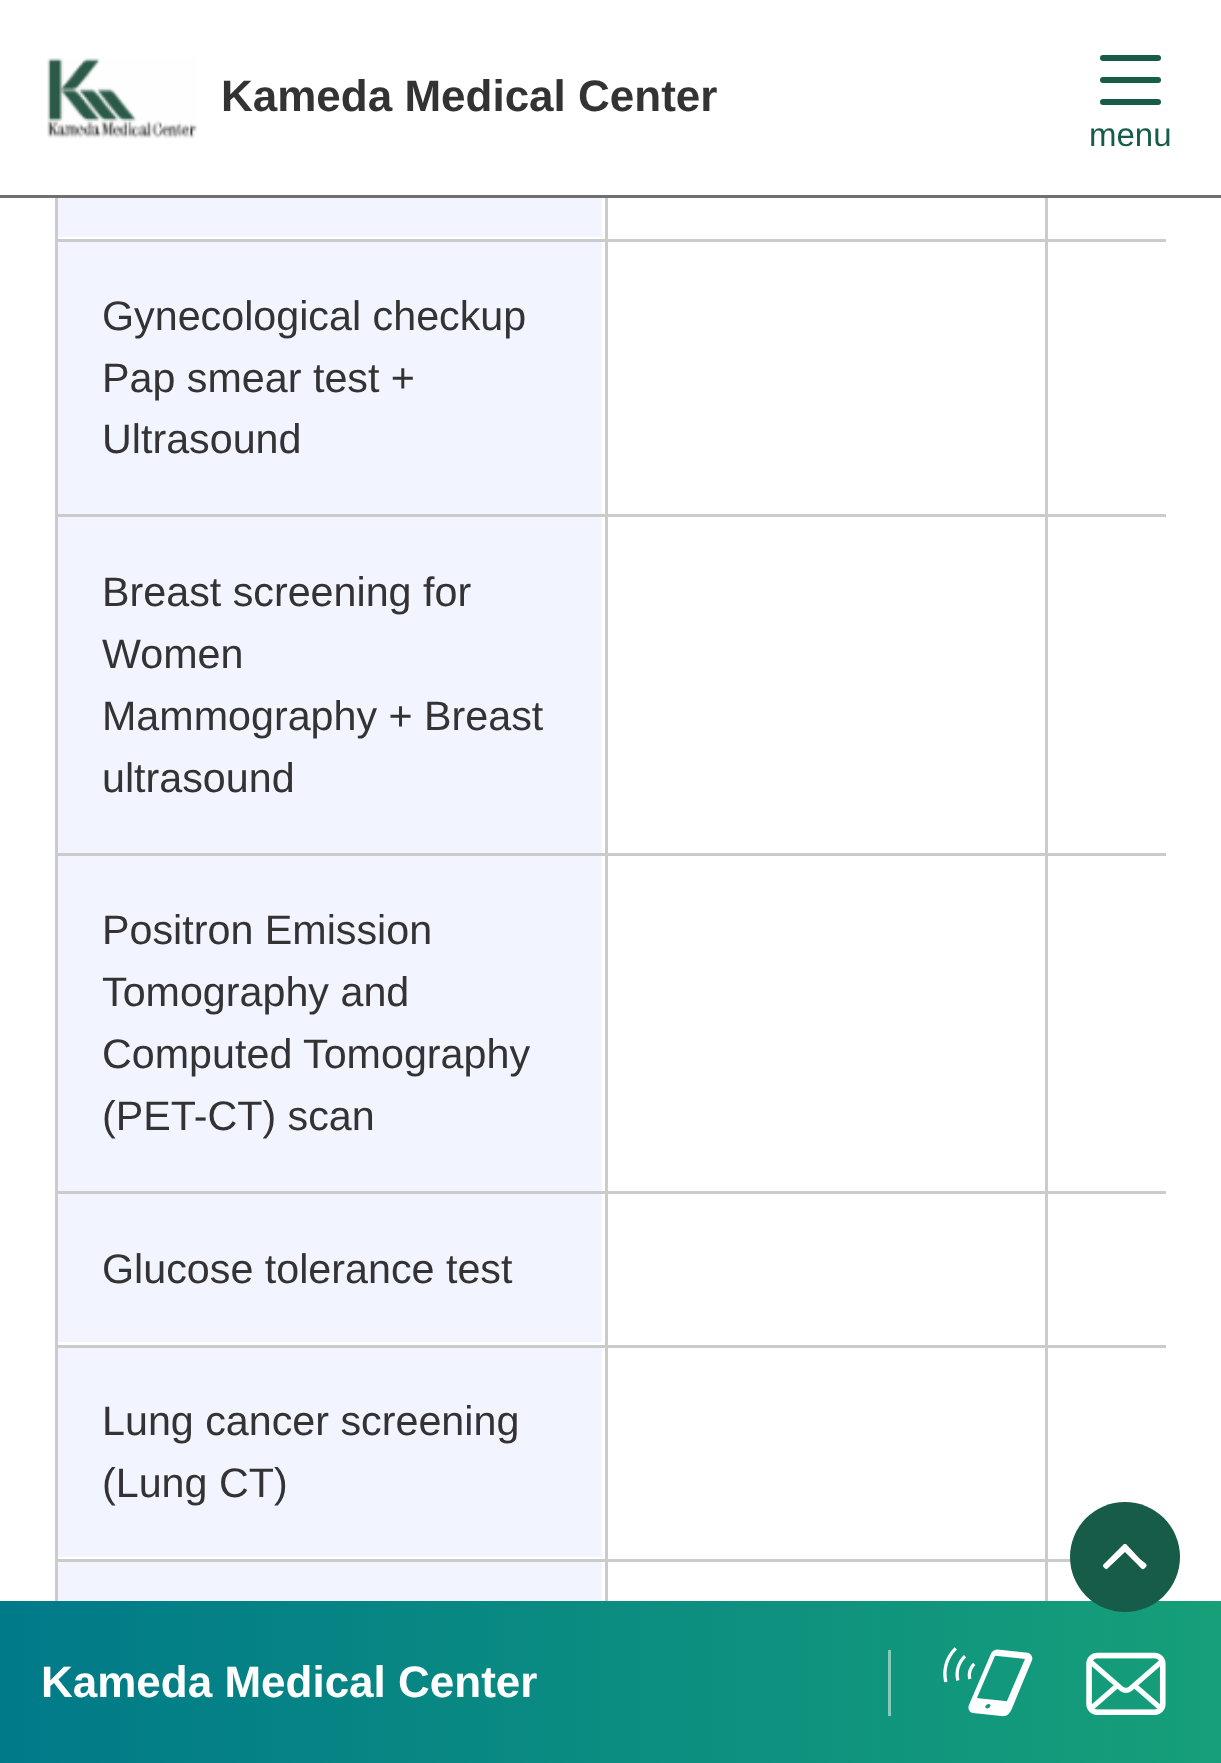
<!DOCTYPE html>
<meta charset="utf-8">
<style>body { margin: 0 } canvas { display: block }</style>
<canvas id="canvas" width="1221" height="1763"></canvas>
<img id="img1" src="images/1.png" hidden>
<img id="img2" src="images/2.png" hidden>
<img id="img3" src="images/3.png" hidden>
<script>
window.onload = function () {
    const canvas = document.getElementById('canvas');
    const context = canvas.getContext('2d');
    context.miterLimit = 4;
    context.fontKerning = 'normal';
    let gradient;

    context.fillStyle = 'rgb(255, 255, 255)';
    context.fillRect(0, 0, 1221, 1763);
    context.fillStyle = 'rgb(112, 112, 112)';
    context.fillRect(0, 195, 1221, 3);
    context.drawImage(document.getElementById('img1'), 47, 58, 150, 81);
    context.fillStyle = 'rgb(22, 92, 72)';
    context.beginPath();
    context.roundRect(1100, 55, 61, 6, 3);
    context.fill();
    context.beginPath();
    context.roundRect(1100, 77, 61, 6, 3);
    context.fill();
    context.beginPath();
    context.roundRect(1100, 99, 61, 6, 3);
    context.fill();
    context.fillStyle = 'rgb(203, 203, 203)';
    context.fillRect(55, 198, 3, 1403);
    context.fillStyle = 'rgb(242, 244, 255)';
    context.fillRect(58, 198, 544, 39);
    context.fillStyle = 'rgb(203, 203, 203)';
    context.fillRect(1045, 1559, 3, 42);
    context.fillRect(1045, 1559, 26, 3);
    context.fillRect(1045, 1345, 3, 217);
    context.fillRect(1045, 1345, 121, 3);
    context.fillRect(1045, 1191, 3, 157);
    context.fillRect(1045, 1191, 121, 3);
    context.fillRect(1045, 853, 3, 341);
    context.fillRect(1045, 853, 121, 3);
    context.fillRect(1045, 514, 3, 341);
    context.fillRect(1045, 514, 121, 3);
    context.fillRect(1045, 239, 3, 278);
    context.fillRect(1045, 239, 121, 3);
    context.fillRect(1045, 198, 3, 44);
    context.fillRect(605, 1559, 3, 42);
    context.fillRect(605, 1559, 443, 3);
    context.fillRect(605, 1345, 3, 217);
    context.fillRect(605, 1345, 443, 3);
    context.fillRect(605, 1191, 3, 157);
    context.fillRect(605, 1191, 443, 3);
    context.fillRect(605, 853, 3, 341);
    context.fillRect(605, 853, 443, 3);
    context.fillRect(605, 514, 3, 341);
    context.fillRect(605, 514, 443, 3);
    context.fillRect(605, 239, 3, 278);
    context.fillRect(605, 239, 443, 3);
    context.fillRect(605, 198, 3, 44);
    context.fillRect(55, 239, 553, 3);
    context.fillStyle = 'rgb(242, 244, 255)';
    context.fillRect(58, 242, 544, 272);
    context.fillStyle = 'rgb(203, 203, 203)';
    context.fillRect(55, 514, 553, 3);
    context.fillStyle = 'rgb(242, 244, 255)';
    context.fillRect(58, 517, 544, 336);
    context.fillStyle = 'rgb(203, 203, 203)';
    context.fillRect(55, 853, 553, 3);
    context.fillStyle = 'rgb(242, 244, 255)';
    context.fillRect(58, 856, 544, 335);
    context.fillStyle = 'rgb(203, 203, 203)';
    context.fillRect(55, 1191, 553, 3);
    context.fillStyle = 'rgb(242, 244, 255)';
    context.fillRect(58, 1194, 544, 148);
    context.fillStyle = 'rgb(203, 203, 203)';
    context.fillRect(55, 1345, 553, 3);
    context.fillStyle = 'rgb(242, 244, 255)';
    context.fillRect(58, 1348, 544, 209);
    context.fillStyle = 'rgb(203, 203, 203)';
    context.fillRect(55, 1559, 553, 3);
    context.fillStyle = 'rgb(242, 244, 255)';
    context.fillRect(58, 1562, 544, 39);
    gradient = context.createLinearGradient(0, 1683, 1221, 1683);
    gradient.addColorStop(0, 'rgb(0, 122, 137)');
    gradient.addColorStop(1, 'rgb(22, 159, 121)');
    context.fillStyle = gradient;
    context.fillRect(0, 1601, 1221, 162);
    context.fillStyle = 'rgb(22, 92, 72)';
    context.beginPath();
    context.arc(1125, 1557, 55, 0, 2 * Math.PI);
    context.fill();
    context.fillStyle = 'rgb(255, 255, 255)';
    context.beginPath();
    context.moveTo(1126, 1544);
    context.lineTo(1139, 1558);
    context.bezierCurveTo(1145, 1564, 1150, 1564, 1144, 1569);
    context.bezierCurveTo(1142, 1570, 1139, 1566, 1139, 1566);
    context.lineTo(1125, 1552);
    context.lineTo(1107, 1569);
    context.bezierCurveTo(1106, 1570, 1102, 1566, 1103, 1565);
    context.lineTo(1124, 1544);
    context.bezierCurveTo(1124, 1544, 1125, 1544, 1126, 1544);
    context.closePath();
    context.fill();
    context.fillStyle = 'rgb(136, 202, 190)';
    context.fillRect(888, 1650, 3, 66);
    context.drawImage(document.getElementById('img2'), 943, 1647, 90, 70);
    context.drawImage(document.getElementById('img3'), 1086, 1652, 80, 63);
    context.font = 'bold 44px Liberation Sans';
    context.fillStyle = 'rgb(51, 51, 51)';
    context.fillText('Kameda Medical Center', 221, 111);
    context.font = '33px Liberation Sans';
    context.fillStyle = 'rgb(22, 92, 72)';
    context.fillText('menu', 1089, 146);
    context.font = '41.25px Liberation Sans';
    context.fillStyle = 'rgb(51, 51, 51)';
    context.fillText('Gynecological checkup', 102, 330);
    context.fillText('Pap smear test +', 102, 392);
    context.fillText('Ultrasound', 102, 453);
    context.fillText('Breast screening for', 102, 606);
    context.fillText('Women', 102, 668);
    context.fillText('Mammography + Breast', 102, 730);
    context.fillText('ultrasound', 102, 792);
    context.fillText('Positron Emission', 102, 944);
    context.fillText('Tomography and', 102, 1006);
    context.fillText('Computed Tomography', 102, 1068);
    context.fillText('(PET-CT) scan', 102, 1130);
    context.fillText('Glucose tolerance test', 102, 1283);
    context.fillText('Lung cancer screening', 102, 1435);
    context.fillText('(Lung CT)', 102, 1497);
    context.font = 'bold 44px Liberation Sans';
    context.fillStyle = 'rgb(255, 255, 255)';
    context.fillText('Kameda Medical Center', 41, 1697);
};
</script>
